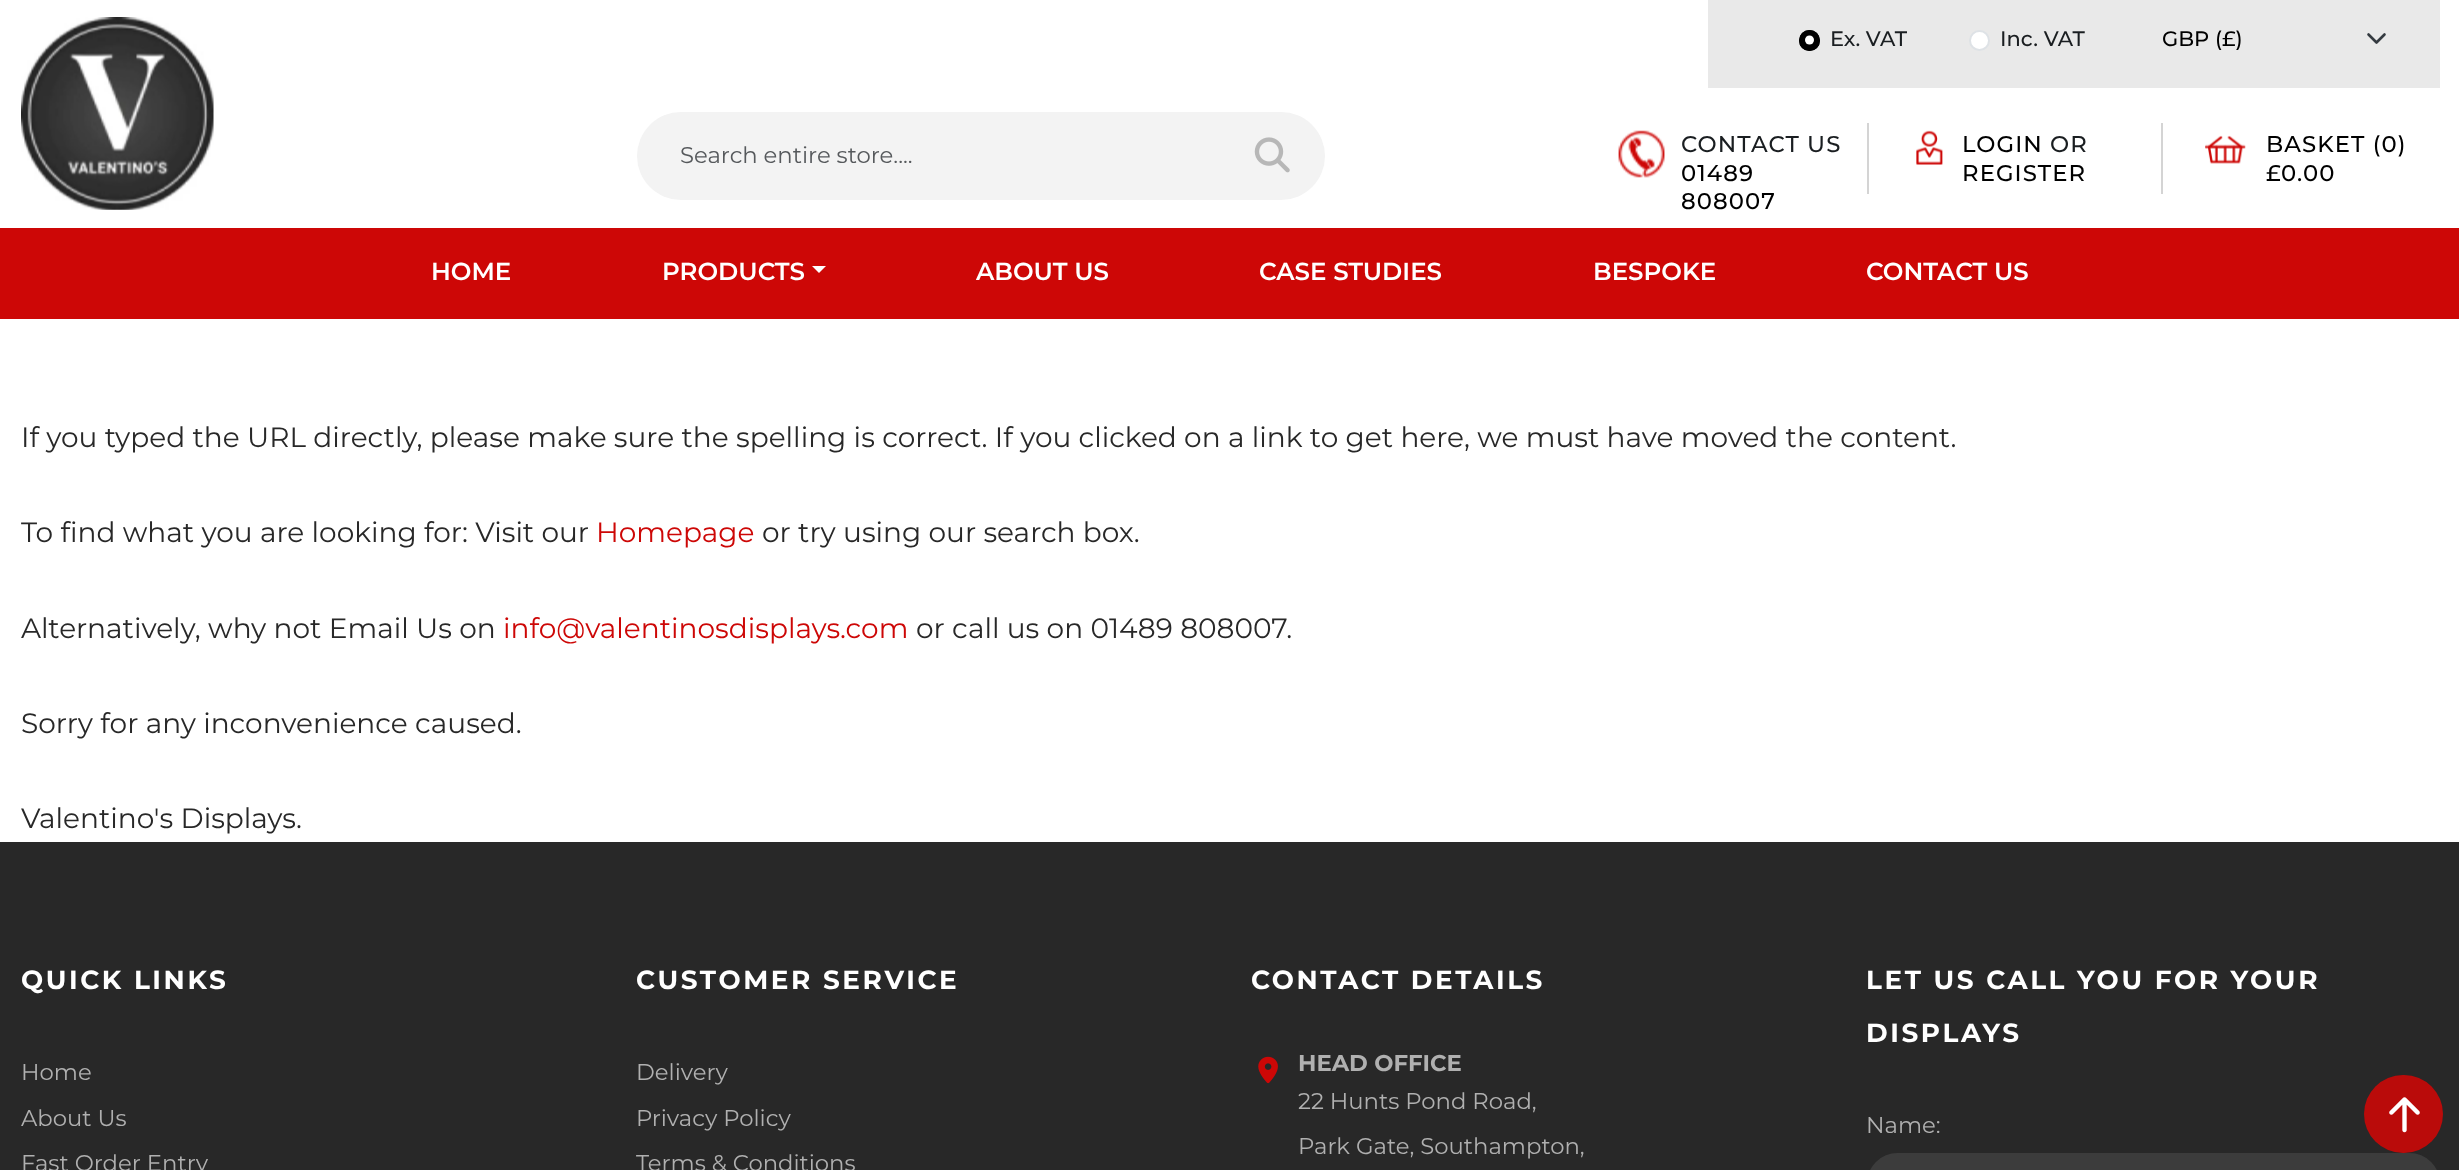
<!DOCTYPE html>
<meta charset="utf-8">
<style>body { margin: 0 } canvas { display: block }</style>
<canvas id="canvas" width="2459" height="1170"></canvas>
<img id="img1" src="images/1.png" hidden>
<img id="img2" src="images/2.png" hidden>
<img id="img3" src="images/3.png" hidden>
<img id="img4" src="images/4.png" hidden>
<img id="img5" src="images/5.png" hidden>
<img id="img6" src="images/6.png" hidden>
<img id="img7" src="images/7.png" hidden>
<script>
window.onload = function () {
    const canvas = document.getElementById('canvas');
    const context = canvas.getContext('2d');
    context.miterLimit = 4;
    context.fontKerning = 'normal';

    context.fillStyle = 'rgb(255, 255, 255)';
    context.fillRect(0, 0, 2459, 1170);
    context.drawImage(document.getElementById('img1'), 21, 17, 193, 193);
    context.fillStyle = 'rgb(243, 243, 243)';
    context.beginPath();
    context.roundRect(637, 112, 590, 88, [44, 0, 0, 44]);
    context.fill();
    context.beginPath();
    context.roundRect(1225, 112, 100, 88, [0, 44, 44, 0]);
    context.fill();
    context.drawImage(document.getElementById('img2'), 1254, 137, 36, 36);
    context.fillStyle = 'rgb(233, 233, 233)';
    context.fillRect(1708, 0, 732, 88);
    context.fillStyle = 'rgb(0, 0, 0)';
    context.beginPath();
    context.arc(1809.5, 40.5, 10.5, 0, 2 * Math.PI);
    context.fill();
    context.fillStyle = 'rgb(255, 255, 255)';
    context.beginPath();
    context.arc(1809.5, 40, 4.5, 0, 2 * Math.PI);
    context.fill();
    context.beginPath();
    context.arc(1809.5, 40.5, 9.5, 0, 2 * Math.PI);
    context.strokeStyle = 'rgb(0, 0, 0)';
    context.lineWidth = 2;
    context.stroke();
    context.beginPath();
    context.arc(1979.5, 40.5, 9.5, 0, 2 * Math.PI);
    context.fill();
    context.strokeStyle = 'rgb(222, 226, 230)';
    context.stroke();
    context.beginPath();
    context.moveTo(2368.5, 34.5);
    context.lineTo(2376.5, 42.5);
    context.lineTo(2384.5, 34.5);
    context.strokeStyle = 'rgb(52, 58, 64)';
    context.lineWidth = 2.6;
    context.lineCap = 'round';
    context.lineJoin = 'round';
    context.stroke();
    context.drawImage(document.getElementById('img3'), 1618, 130, 47, 48);
    context.fillStyle = 'rgb(212, 212, 212)';
    context.fillRect(1867, 123, 2, 71);
    context.drawImage(document.getElementById('img4'), 1916, 130, 27, 35);
    context.fillRect(2161, 123, 2, 71);
    context.drawImage(document.getElementById('img5'), 2205, 135, 41, 29);
    context.fillStyle = 'rgb(205, 7, 6)';
    context.fillRect(0, 228, 2459, 91);
    context.fillStyle = 'rgb(255, 255, 255)';
    context.beginPath();
    context.moveTo(812, 266);
    context.lineTo(826, 266);
    context.lineTo(819, 273);
    context.closePath();
    context.fill();
    context.fillStyle = 'rgb(40, 40, 40)';
    context.fillRect(0, 842, 2459, 328);
    context.drawImage(document.getElementById('img6'), 1258, 1056, 20, 28);
    context.fillStyle = 'rgb(60, 60, 60)';
    context.beginPath();
    context.roundRect(1867, 1153, 573, 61, 44);
    context.fill();
    context.fillStyle = 'rgb(186, 11, 10)';
    context.beginPath();
    context.roundRect(2364, 1075, 79, 78, 39);
    context.fill();
    context.drawImage(document.getElementById('img7'), 2389, 1097, 31, 36);
    context.font = '22.75px Montserrat';
    context.fillStyle = 'rgb(86, 89, 92)';
    context.fillText('Search entire store....', 680, 163);
    context.font = '500 21px Montserrat';
    context.fillStyle = 'rgb(26, 30, 33)';
    context.fillText('Ex. VAT', 1830, 46);
    context.fillText('Inc. VAT', 2000, 46);
    context.fillStyle = 'rgb(0, 0, 0)';
    context.fillText('GBP (£)', 2162, 46);
    context.letterSpacing = '1.1px';
    context.font = '500 22.75px Montserrat';
    context.fillStyle = 'rgb(26, 30, 33)';
    context.fillText('CONTACT US', 1681, 152);
    context.fillStyle = 'rgb(0, 0, 0)';
    context.fillText('01489', 1681, 181);
    context.fillText('808007', 1681, 209);
    context.fillText('LOGIN', 1962, 152);
    context.fillStyle = 'rgb(26, 30, 33)';
    context.fillText('OR', 2050, 152);
    context.fillStyle = 'rgb(0, 0, 0)';
    context.fillText('REGISTER', 1962, 181);
    context.fillText('BASKET (0)', 2266, 152);
    context.fillText('£0.00', 2266, 181);
    context.letterSpacing = '0px';
    context.font = '600 24.5px Montserrat';
    context.fillStyle = 'rgb(255, 255, 255)';
    context.fillText('HOME', 431, 280);
    context.fillText('PRODUCTS', 662, 280);
    context.fillText('ABOUT US', 976, 280);
    context.fillText('CASE STUDIES', 1259, 280);
    context.fillText('BESPOKE', 1593, 280);
    context.fillText('CONTACT US', 1866, 280);
    context.font = '28px Montserrat';
    context.fillStyle = 'rgb(40, 40, 40)';
    context.fillText('If you typed the URL directly, please make sure the spelling is correct. If you clicked on a link to get here, we must have moved the content.', 21, 447);
    context.fillText('To find what you are looking for: Visit our', 21, 542);
    context.fillStyle = 'rgb(205, 7, 6)';
    context.fillText('Homepage', 596, 542);
    context.fillStyle = 'rgb(40, 40, 40)';
    context.fillText('or try using our search box.', 762, 542);
    context.fillText('Alternatively, why not Email Us on', 21, 638);
    context.fillStyle = 'rgb(205, 7, 6)';
    context.fillText('info@valentinosdisplays.com', 503, 638);
    context.fillStyle = 'rgb(40, 40, 40)';
    context.fillText('or call us on 01489 808007.', 916, 638);
    context.fillText('Sorry for any inconvenience caused.', 21, 733);
    context.fillText('Valentino\'s Displays.', 21, 828);
    context.letterSpacing = '2.6px';
    context.font = 'bold 26.25px Montserrat';
    context.fillStyle = 'rgb(255, 255, 255)';
    context.fillText('QUICK LINKS', 21, 989);
    context.letterSpacing = '0px';
    context.font = '22.75px Montserrat';
    context.fillStyle = 'rgb(176, 176, 176)';
    context.fillText('Home', 21, 1080);
    context.fillText('About Us', 21, 1126);
    context.fillText('Fast Order Entry', 21, 1171);
    context.letterSpacing = '2.6px';
    context.font = 'bold 26.25px Montserrat';
    context.fillStyle = 'rgb(255, 255, 255)';
    context.fillText('CUSTOMER SERVICE', 636, 989);
    context.letterSpacing = '0px';
    context.font = '22.75px Montserrat';
    context.fillStyle = 'rgb(176, 176, 176)';
    context.fillText('Delivery', 636, 1080);
    context.fillText('Privacy Policy', 636, 1126);
    context.fillText('Terms & Conditions', 636, 1171);
    context.letterSpacing = '2.6px';
    context.font = 'bold 26.25px Montserrat';
    context.fillStyle = 'rgb(255, 255, 255)';
    context.fillText('CONTACT DETAILS', 1251, 989);
    context.letterSpacing = '0px';
    context.font = 'bold 22.75px Montserrat';
    context.fillStyle = 'rgb(176, 176, 176)';
    context.fillText('HEAD OFFICE', 1298, 1071);
    context.font = '22.75px Montserrat';
    context.fillText('22 Hunts Pond Road,', 1298, 1109);
    context.fillText('Park Gate, Southampton,', 1298, 1154);
    context.letterSpacing = '2.6px';
    context.font = 'bold 26.25px Montserrat';
    context.fillStyle = 'rgb(255, 255, 255)';
    context.fillText('LET US CALL YOU FOR YOUR', 1866, 989);
    context.fillText('DISPLAYS', 1866, 1042);
    context.letterSpacing = '0px';
    context.font = '22.75px Montserrat';
    context.fillStyle = 'rgb(176, 176, 176)';
    context.fillText('Name:', 1866, 1133);
};
</script>
